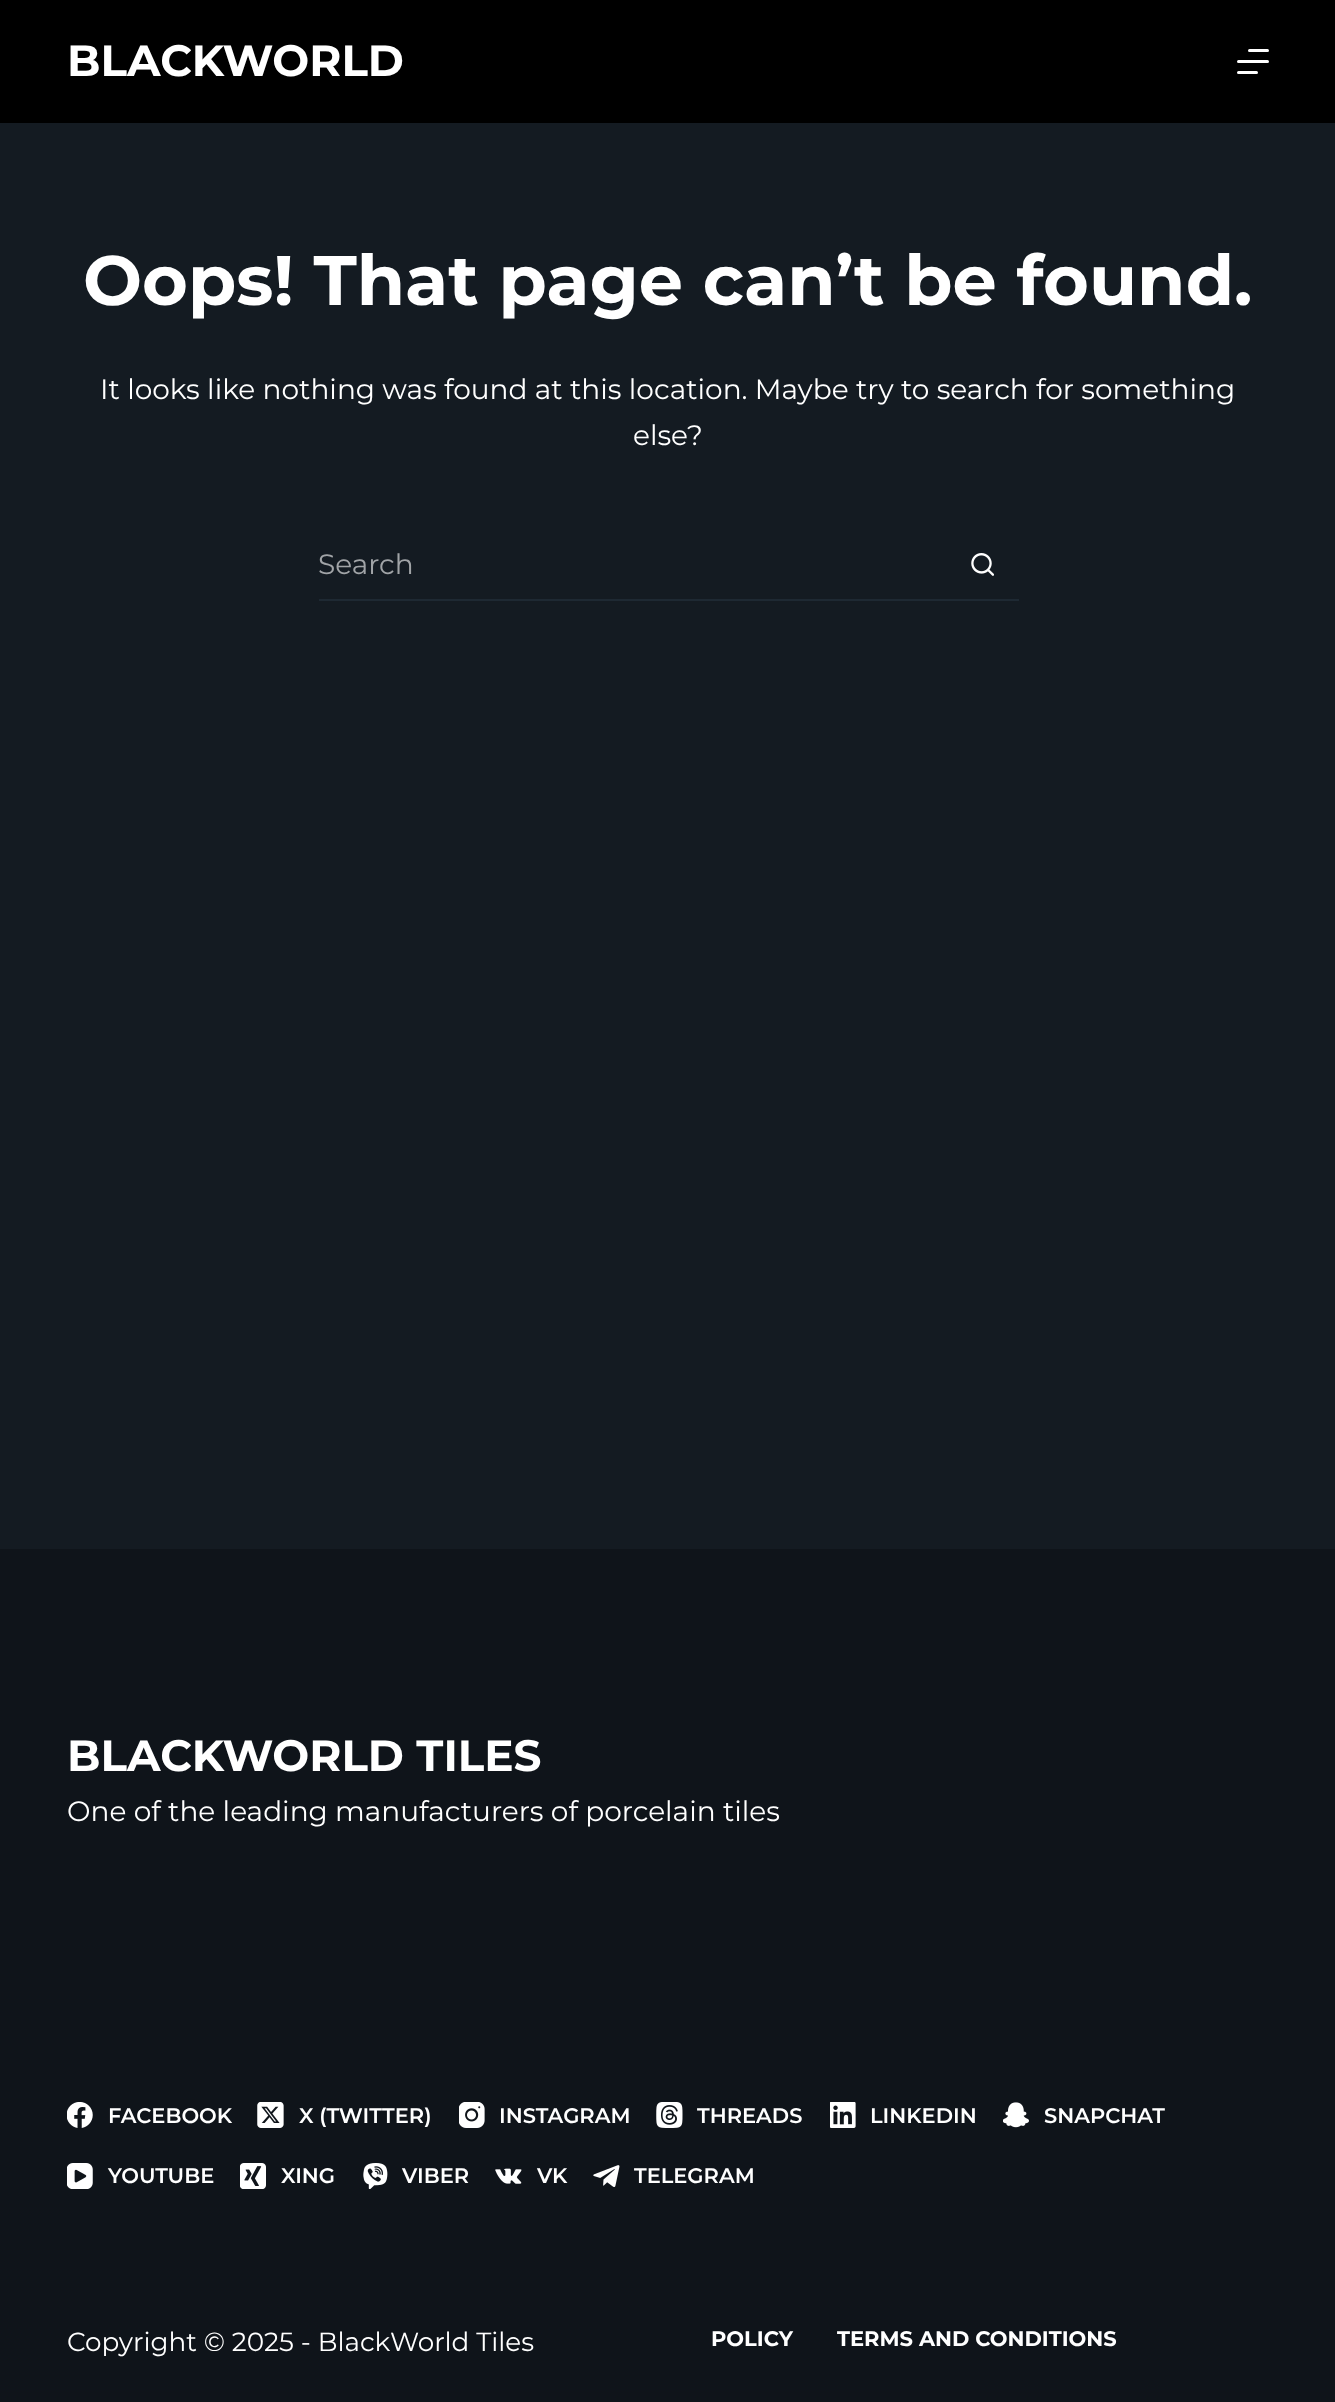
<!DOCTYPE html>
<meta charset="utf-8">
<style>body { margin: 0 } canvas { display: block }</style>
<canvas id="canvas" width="1335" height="2402"></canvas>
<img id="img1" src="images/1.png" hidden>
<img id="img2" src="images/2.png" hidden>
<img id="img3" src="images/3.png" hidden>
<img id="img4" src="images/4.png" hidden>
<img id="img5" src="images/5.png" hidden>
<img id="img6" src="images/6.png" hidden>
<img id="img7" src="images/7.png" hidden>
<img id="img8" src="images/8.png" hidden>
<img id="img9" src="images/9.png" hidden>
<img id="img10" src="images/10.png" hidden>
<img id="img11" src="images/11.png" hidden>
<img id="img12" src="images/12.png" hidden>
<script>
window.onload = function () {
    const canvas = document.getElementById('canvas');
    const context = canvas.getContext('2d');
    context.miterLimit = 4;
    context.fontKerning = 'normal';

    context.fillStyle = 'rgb(20, 27, 34)';
    context.fillRect(0, 0, 1335, 2402);
    context.fillStyle = 'rgb(0, 0, 0)';
    context.fillRect(0, 0, 1335, 123);
    context.fillStyle = 'rgb(255, 255, 255)';
    context.beginPath();
    context.roundRect(1248, 49, 21, 3, 1.5);
    context.fill();
    context.beginPath();
    context.roundRect(1237, 60, 32, 3, 1.5);
    context.fill();
    context.beginPath();
    context.roundRect(1237, 71, 21, 3, 1.5);
    context.fill();
    context.fillStyle = 'rgb(30, 41, 51)';
    context.fillRect(319, 599, 700, 2);
    context.drawImage(document.getElementById('img1'), 971, 553, 23, 23);
    context.fillStyle = 'rgb(15, 20, 26)';
    context.fillRect(0, 1549, 1335, 853);
    context.drawImage(document.getElementById('img2'), 67, 2102, 26, 26);
    context.drawImage(document.getElementById('img3'), 257, 2102, 27, 26);
    context.drawImage(document.getElementById('img4'), 459, 2102, 26, 26);
    context.drawImage(document.getElementById('img5'), 656, 2102, 27, 26);
    context.drawImage(document.getElementById('img6'), 830, 2102, 26, 26);
    context.drawImage(document.getElementById('img7'), 1003, 2102, 26, 26);
    context.drawImage(document.getElementById('img8'), 67, 2163, 26, 26);
    context.drawImage(document.getElementById('img9'), 240, 2163, 26, 26);
    context.drawImage(document.getElementById('img10'), 363, 2163, 25, 26);
    context.drawImage(document.getElementById('img11'), 495, 2168, 27, 16);
    context.drawImage(document.getElementById('img12'), 593, 2165, 27, 22);
    context.font = 'bold 43.75px Montserrat';
    context.fillStyle = 'rgb(255, 255, 255)';
    context.fillText('BLACKWORLD', 67, 76);
    context.font = 'bold 70px Montserrat';
    context.fillText('Oops! That page can’t be found.', 83, 305);
    context.font = '28px Montserrat';
    context.fillText('It looks like nothing was found at this location. Maybe try to search for something', 100, 399);
    context.fillText('else?', 633, 445);
    context.fillStyle = 'rgb(161, 164, 167)';
    context.fillText('Search', 318, 574);
    context.font = 'bold 43.75px Montserrat';
    context.fillStyle = 'rgb(255, 255, 255)';
    context.fillText('BLACKWORLD TILES', 67, 1771);
    context.font = '28px Montserrat';
    context.fillText('One of the leading manufacturers of porcelain tiles', 67, 1821);
    context.font = '600 21px Montserrat';
    context.fillText('FACEBOOK', 108, 2123);
    context.fillText('X (TWITTER)', 299, 2123);
    context.fillText('INSTAGRAM', 499, 2123);
    context.fillText('THREADS', 697, 2123);
    context.fillText('LINKEDIN', 870, 2123);
    context.fillText('SNAPCHAT', 1044, 2123);
    context.fillText('YOUTUBE', 108, 2183);
    context.fillText('XING', 281, 2183);
    context.fillText('VIBER', 402, 2183);
    context.fillText('VK', 537, 2183);
    context.fillText('TELEGRAM', 634, 2183);
    context.font = '26.25px Montserrat';
    context.fillText('Copyright © 2025 - BlackWorld Tiles', 67, 2351);
    context.font = 'bold 21px Montserrat';
    context.fillText('POLICY', 711, 2346);
    context.fillText('TERMS AND CONDITIONS', 837, 2346);
};
</script>
